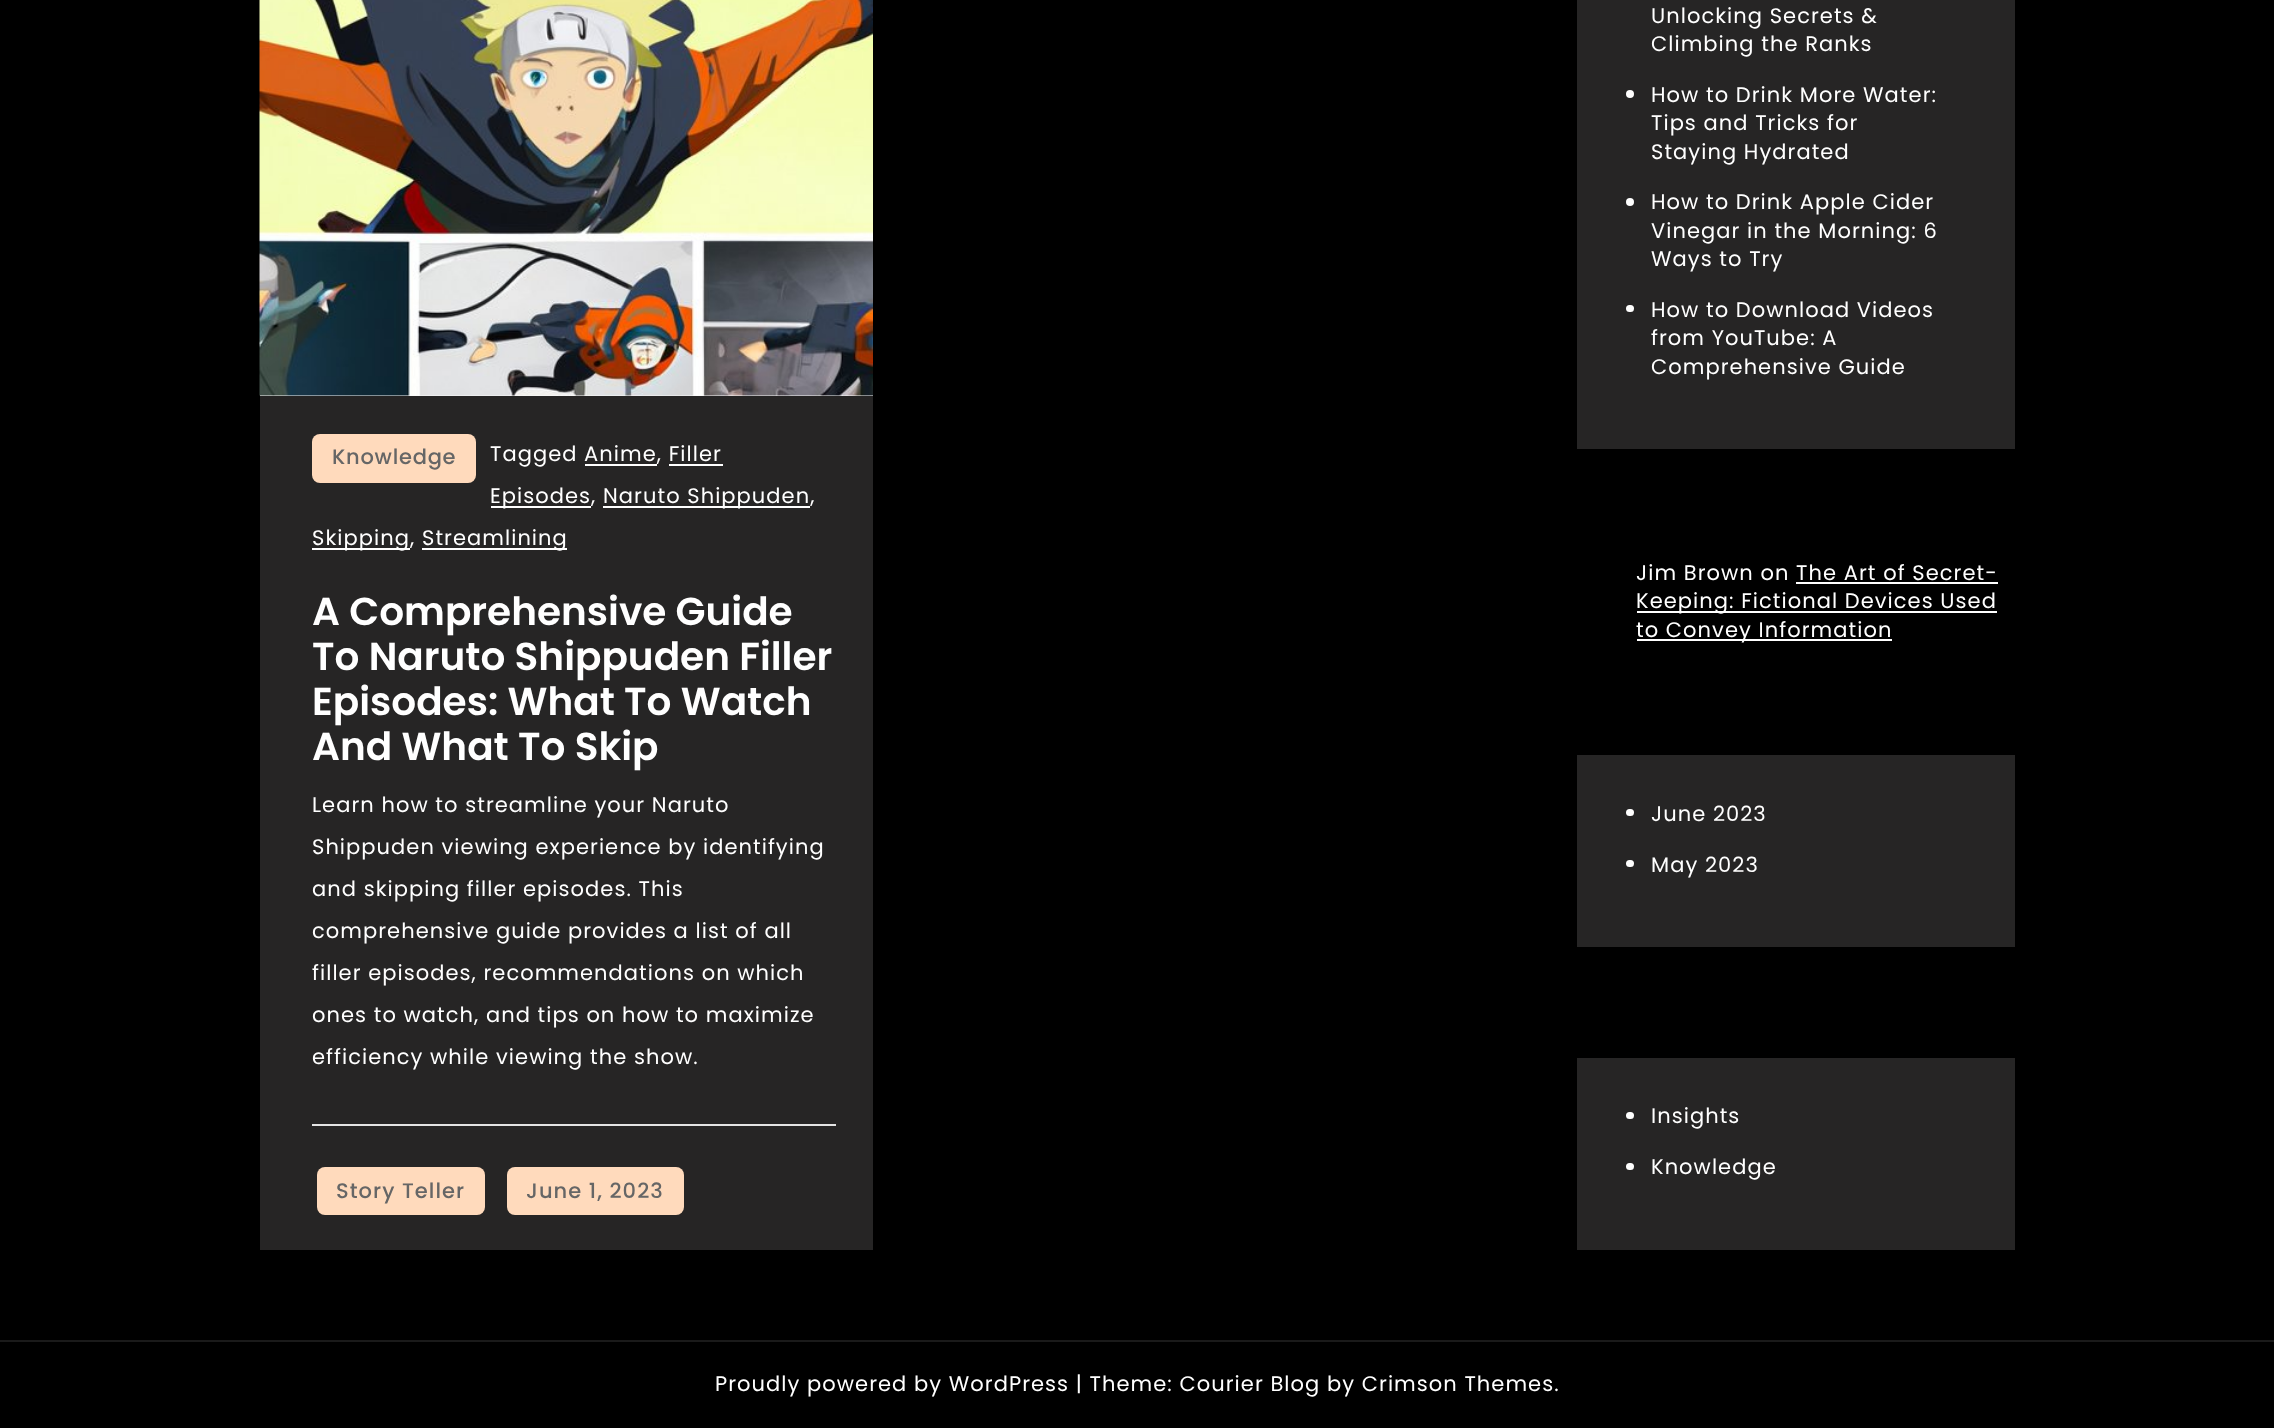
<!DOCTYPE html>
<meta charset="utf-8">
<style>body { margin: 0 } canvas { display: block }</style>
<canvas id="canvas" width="2274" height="1428"></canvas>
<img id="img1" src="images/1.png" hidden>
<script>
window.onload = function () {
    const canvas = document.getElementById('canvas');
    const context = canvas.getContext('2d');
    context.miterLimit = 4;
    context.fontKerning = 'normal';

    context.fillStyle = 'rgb(0, 0, 0)';
    context.fillRect(0, 0, 2274, 1428);
    context.fillStyle = 'rgb(250, 250, 250)';
    context.fillRect(260, 395, 613, 1);
    context.drawImage(document.getElementById('img1'), 259, 0, 614, 396);
    context.fillStyle = 'rgb(38, 37, 37)';
    context.fillRect(260, 396, 613, 854);
    context.fillStyle = 'rgb(255, 218, 188)';
    context.beginPath();
    context.roundRect(312, 434, 164, 49, 8);
    context.fill();
    context.fillStyle = 'rgb(255, 255, 255)';
    context.fillRect(585, 464, 72, 2);
    context.fillRect(669, 464, 54, 2);
    context.fillRect(491, 506, 100, 2);
    context.fillRect(603, 506, 207, 2);
    context.fillRect(312, 548, 98, 2);
    context.fillRect(422, 548, 145, 2);
    context.fillStyle = 'rgb(228, 228, 228)';
    context.fillRect(312, 1124, 524, 2);
    context.fillStyle = 'rgb(255, 218, 188)';
    context.beginPath();
    context.roundRect(317, 1167, 168, 48, 8);
    context.fill();
    context.beginPath();
    context.roundRect(507, 1167, 177, 48, 8);
    context.fill();
    context.fillStyle = 'rgb(38, 37, 37)';
    context.fillRect(1577, 0, 438, 449);
    context.fillStyle = 'rgb(255, 255, 255)';
    context.beginPath();
    context.arc(1630, 94, 4, 0, 2 * Math.PI);
    context.fill();
    context.beginPath();
    context.arc(1630, 202, 4, 0, 2 * Math.PI);
    context.fill();
    context.beginPath();
    context.roundRect(1626, 305, 8, 7, 3.5);
    context.fill();
    context.fillRect(1796, 582, 202, 2);
    context.fillRect(1637, 611, 360, 2);
    context.fillRect(1637, 639, 255, 2);
    context.fillStyle = 'rgb(38, 37, 37)';
    context.fillRect(1577, 755, 438, 192);
    context.fillStyle = 'rgb(255, 255, 255)';
    context.beginPath();
    context.roundRect(1626, 809, 8, 7, 3.5);
    context.fill();
    context.beginPath();
    context.roundRect(1626, 860, 8, 7, 3.5);
    context.fill();
    context.fillStyle = 'rgb(38, 37, 37)';
    context.fillRect(1577, 1058, 438, 192);
    context.fillStyle = 'rgb(255, 255, 255)';
    context.beginPath();
    context.roundRect(1626, 1112, 8, 7, 3.5);
    context.fill();
    context.beginPath();
    context.roundRect(1626, 1163, 8, 7, 3.5);
    context.fill();
    context.fillStyle = 'rgb(26, 26, 26)';
    context.fillRect(0, 1340, 2274, 2);
    context.letterSpacing = '0.75px';
    context.font = '500 21px Poppins';
    context.fillStyle = 'rgb(102, 102, 102)';
    context.fillText('Knowledge', 332, 464);
    context.letterSpacing = '1.05px';
    context.font = '21px Poppins';
    context.fillStyle = 'rgb(255, 255, 255)';
    context.fillText('Tagged Anime, Filler', 490, 461);
    context.fillText('Episodes,', 490, 503);
    context.fillText('Naruto Shippuden,', 603, 503);
    context.fillText('Skipping,', 312, 545);
    context.fillText('Streamlining', 422, 545);
    context.letterSpacing = '0px';
    context.font = '600 39px Poppins';
    context.fillText('A Comprehensive Guide', 312, 625);
    context.fillText('To Naruto Shippuden Filler', 312, 670);
    context.fillText('Episodes: What To Watch', 312, 715);
    context.fillText('And What To Skip', 312, 760);
    context.letterSpacing = '1.05px';
    context.font = '21px Poppins';
    context.fillText('Learn how to streamline your Naruto', 312, 812);
    context.fillText('Shippuden viewing experience by identifying', 312, 854);
    context.fillText('and skipping filler episodes. This', 312, 896);
    context.fillText('comprehensive guide provides a list of all', 312, 938);
    context.fillText('filler episodes, recommendations on which', 312, 980);
    context.fillText('ones to watch, and tips on how to maximize', 312, 1022);
    context.fillText('efficiency while viewing the show.', 312, 1064);
    context.font = '500 21px Poppins';
    context.fillStyle = 'rgb(102, 102, 102)';
    context.fillText('Story Teller', 336, 1198);
    context.fillText('June 1, 2023', 526, 1198);
    context.font = '21px Poppins';
    context.fillStyle = 'rgb(255, 255, 255)';
    context.fillText('Unlocking Secrets &', 1651, 23);
    context.fillText('Climbing the Ranks', 1651, 51);
    context.fillText('How to Drink More Water:', 1651, 102);
    context.fillText('Tips and Tricks for', 1651, 130);
    context.fillText('Staying Hydrated', 1651, 159);
    context.fillText('How to Drink Apple Cider', 1651, 209);
    context.fillText('Vinegar in the Morning: 6', 1651, 238);
    context.fillText('Ways to Try', 1651, 266);
    context.fillText('How to Download Videos', 1651, 317);
    context.fillText('from YouTube: A', 1651, 345);
    context.fillText('Comprehensive Guide', 1651, 374);
    context.fillText('Jim Brown on The Art of Secret-', 1636, 580);
    context.fillText('Keeping: Fictional Devices Used', 1636, 608);
    context.fillText('to Convey Information', 1636, 637);
    context.fillText('June 2023', 1651, 821);
    context.fillText('May 2023', 1651, 872);
    context.fillText('Insights', 1651, 1123);
    context.fillText('Knowledge', 1651, 1174);
    context.fillText('Proudly powered by WordPress | Theme: Courier Blog by Crimson Themes.', 715, 1391);
};
</script>
